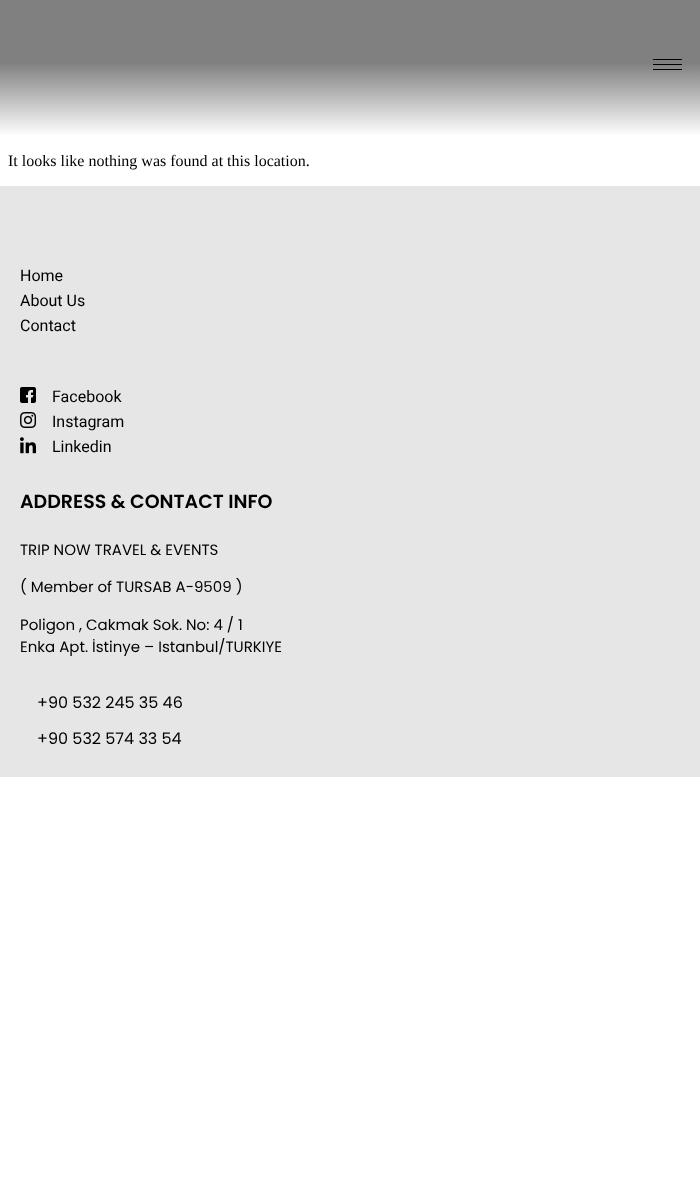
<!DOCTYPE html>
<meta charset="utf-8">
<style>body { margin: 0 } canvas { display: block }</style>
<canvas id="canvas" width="700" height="1183"></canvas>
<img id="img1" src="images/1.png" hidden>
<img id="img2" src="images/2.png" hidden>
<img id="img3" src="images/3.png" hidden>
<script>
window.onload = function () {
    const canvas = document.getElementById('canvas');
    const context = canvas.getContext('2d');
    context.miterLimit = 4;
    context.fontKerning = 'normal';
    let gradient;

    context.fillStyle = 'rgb(255, 255, 255)';
    context.fillRect(0, 0, 700, 1183);
    gradient = context.createLinearGradient(350, -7, 350, 136);
    gradient.addColorStop(0.49, 'rgb(128, 128, 128)');
    gradient.addColorStop(1, 'rgb(255, 255, 255)');
    context.fillStyle = gradient;
    context.fillRect(0, 0, 700, 135);
    context.fillStyle = 'rgb(0, 0, 0)';
    context.fillRect(653, 59, 29, 1);
    context.fillRect(653, 64, 29, 1);
    context.fillRect(653, 69, 29, 1);
    context.fillStyle = 'rgb(230, 230, 230)';
    context.fillRect(0, 186, 700, 591);
    context.drawImage(document.getElementById('img1'), 20, 387, 16, 16);
    context.drawImage(document.getElementById('img2'), 20, 412, 17, 16);
    context.drawImage(document.getElementById('img3'), 20, 437, 16, 17);
    context.font = '16px Liberation Serif';
    context.fillStyle = 'rgb(0, 0, 0)';
    context.fillText('It looks like nothing was found at this location.', 8, 166);
    context.font = '16px Roboto';
    context.fillText('Home', 20, 281);
    context.fillText('About Us', 20, 306);
    context.fillText('Contact', 20, 331);
    context.fillText('Facebook', 52, 402);
    context.fillText('Instagram', 52, 427);
    context.fillText('Linkedin', 52, 452);
    context.font = '600 19px Poppins';
    context.fillText('ADDRESS & CONTACT INFO', 20, 508);
    context.font = '15px Poppins';
    context.fillText('TRIP NOW TRAVEL & EVENTS', 20, 555);
    context.fillText('( Member of TURSAB A-9509 )', 20, 592);
    context.fillText('Poligon , Cakmak Sok. No: 4 / 1', 20, 630);
    context.fillText('Enka Apt. İstinye – Istanbul/TURKIYE', 20, 652);
    context.font = '16px Poppins';
    context.fillText('+90 532 245 35 46', 37, 708);
    context.fillText('+90 532 574 33 54', 37, 744);
};
</script>
